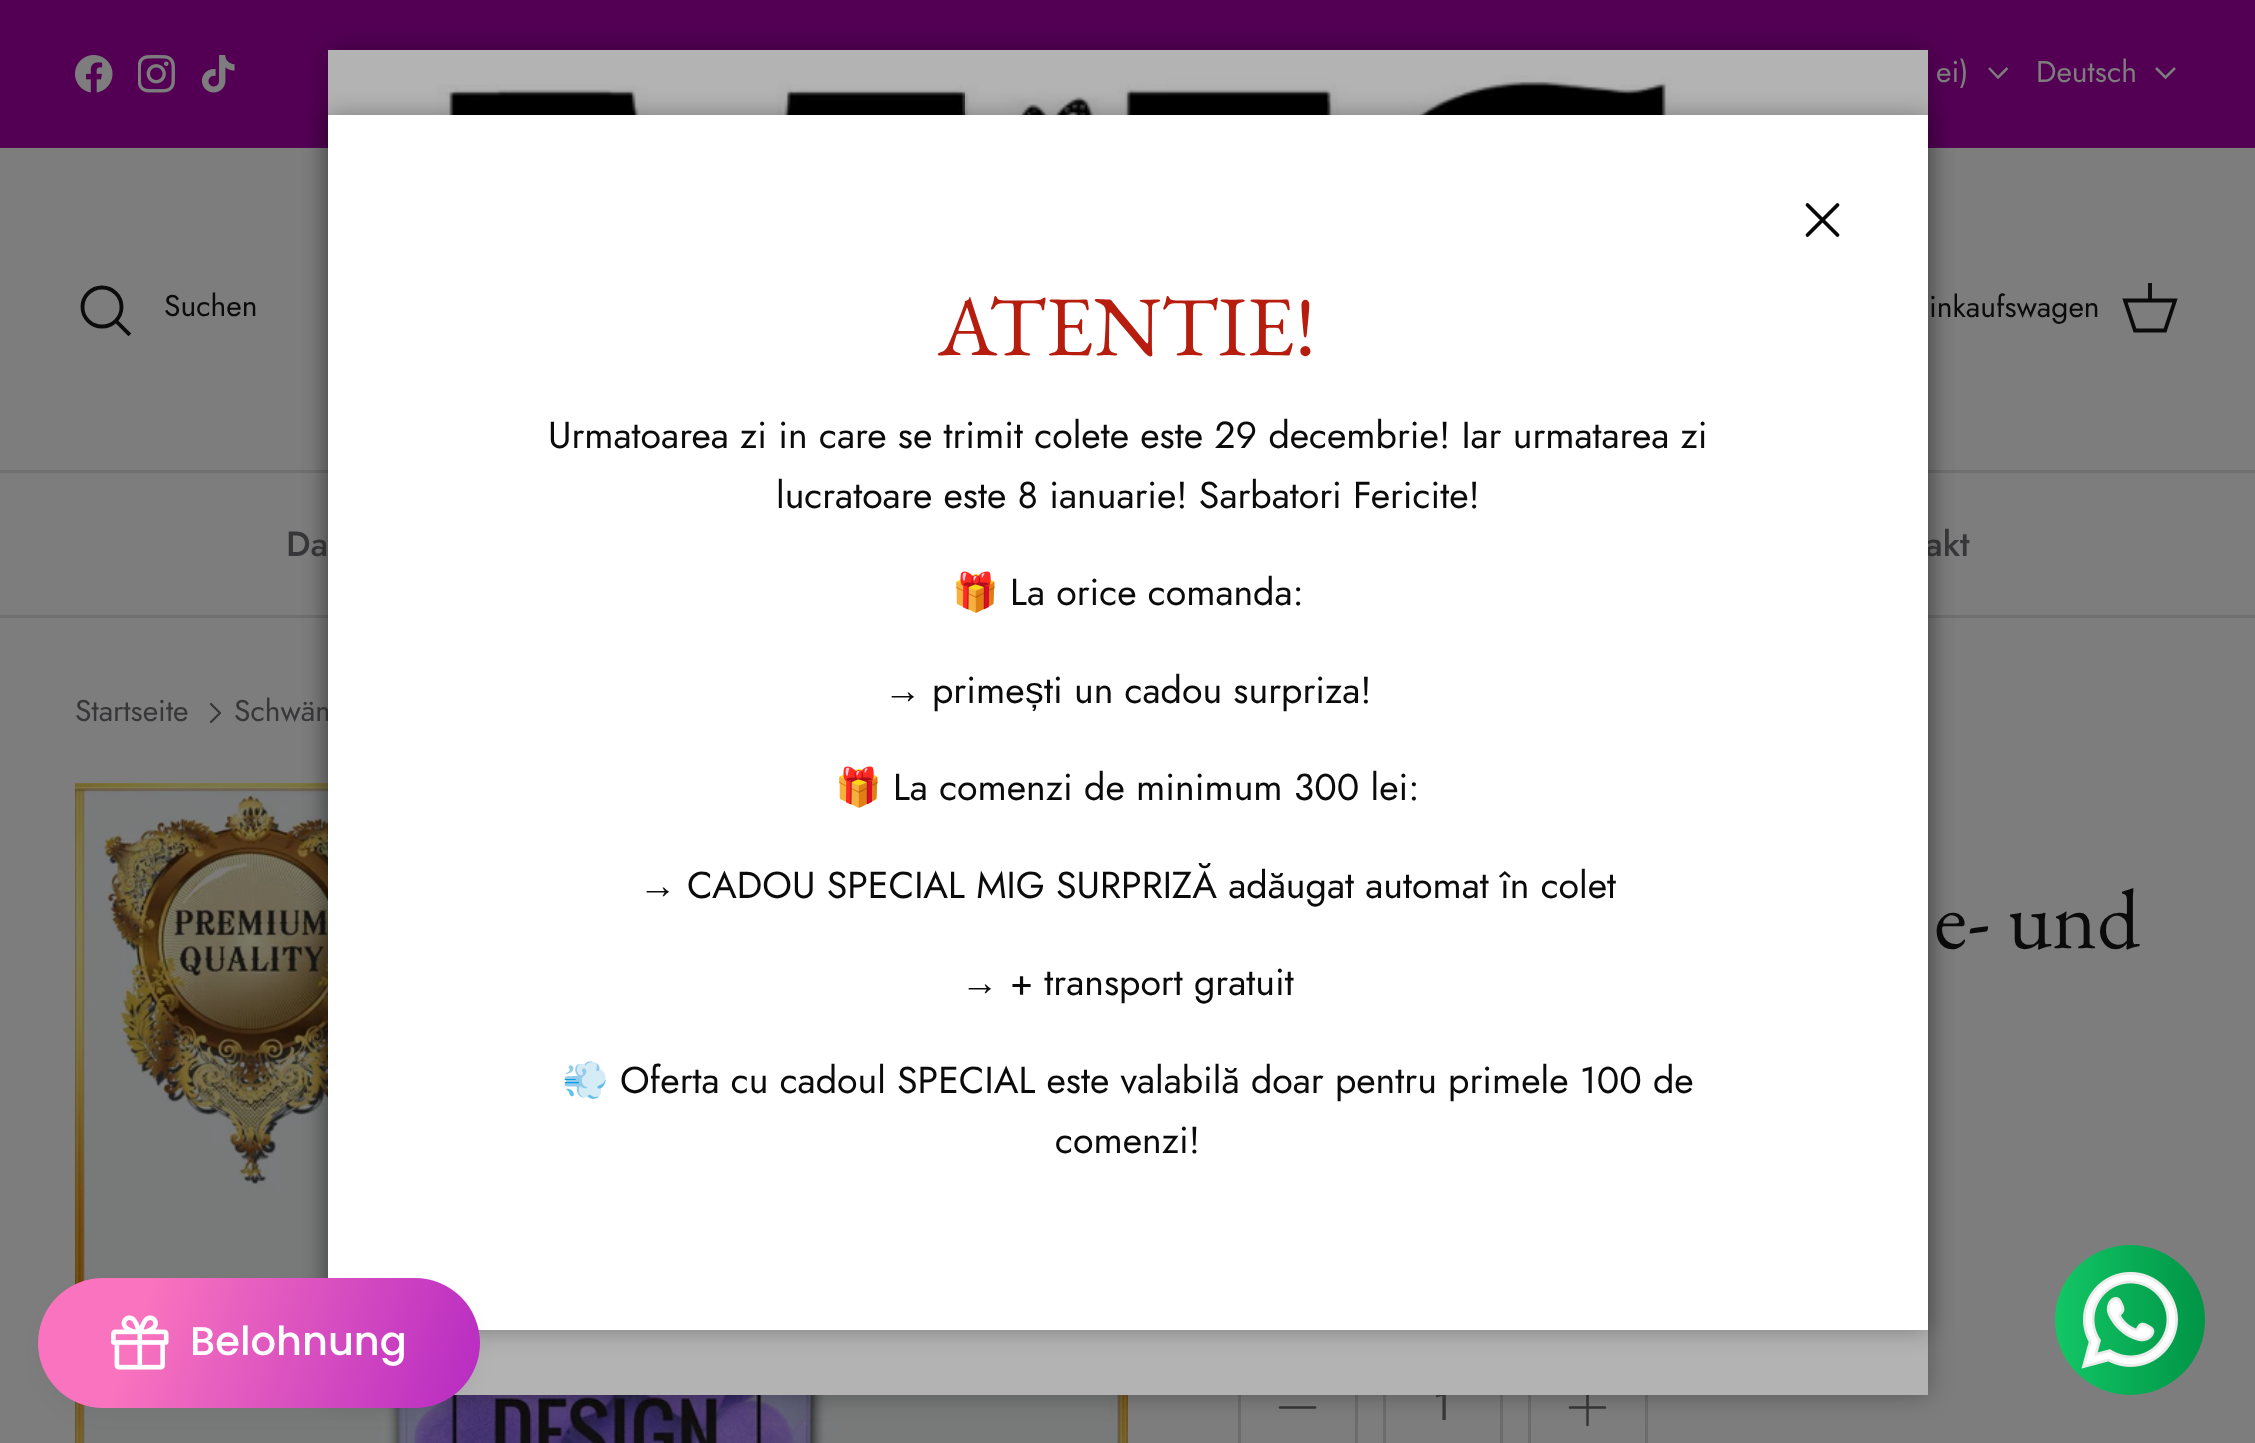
<!DOCTYPE html>
<meta charset="utf-8">
<style>body { margin: 0 } canvas { display: block }</style>
<canvas id="canvas" width="2255" height="1443"></canvas>
<img id="img1" src="images/5.png" hidden>
<img id="img2" src="images/2.png" hidden>
<img id="img3" src="images/3.png" hidden>
<img id="img4" src="images/4.png" hidden>
<img id="img5" src="images/7.png" hidden>
<img id="img6" src="images/1.png" hidden>
<img id="img7" src="images/6.png" hidden>
<script>
window.onload = function () {
    const canvas = document.getElementById('canvas');
    const context = canvas.getContext('2d');
    context.miterLimit = 4;
    context.fontKerning = 'normal';
    let gradient;

    context.fillStyle = 'rgb(125, 125, 125)';
    context.fillRect(0, 0, 2255, 1443);
    context.fillStyle = 'rgb(83, 0, 84)';
    context.fillRect(0, 0, 2255, 148);
    context.fillStyle = 'rgb(109, 111, 113)';
    context.fillRect(0, 470, 2255, 3);
    context.fillRect(0, 615, 2255, 3);
    context.drawImage(document.getElementById('img1'), 75, 783, 1053, 660);
    context.strokeStyle = 'rgb(107, 108, 108)';
    context.lineWidth = 3;
    context.strokeRect(1239.5, 1349.5, 117, 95);
    context.beginPath();
    context.moveTo(1280, 1407.5);
    context.lineTo(1315, 1407.5);
    context.strokeStyle = 'rgb(55, 55, 57)';
    context.lineWidth = 2.5;
    context.lineCap = 'round';
    context.lineJoin = 'round';
    context.stroke();
    context.strokeStyle = 'rgb(107, 108, 108)';
    context.lineWidth = 3;
    context.lineJoin = 'miter';
    context.strokeRect(1384.5, 1349.5, 117, 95);
    context.strokeRect(1529.5, 1349.5, 117, 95);
    context.beginPath();
    context.moveTo(1587.5, 1390);
    context.lineTo(1587.5, 1425);
    context.moveTo(1570, 1407.5);
    context.lineTo(1605, 1407.5);
    context.strokeStyle = 'rgb(55, 55, 57)';
    context.lineWidth = 2.5;
    context.lineJoin = 'round';
    context.stroke();
    context.fillStyle = 'rgba(0, 0, 0, 0.3)';
    context.filter = 'blur(12.5px)';
    context.beginPath();
    context.rect(328, 50, 1600, 1345);
    context.fill();
    context.filter = 'none';
    context.drawImage(document.getElementById('img2'), 75, 55, 38, 38);
    context.drawImage(document.getElementById('img3'), 138, 55, 37, 38);
    context.drawImage(document.getElementById('img4'), 202, 55, 33, 38);
    context.beginPath();
    context.moveTo(2007.5, 68);
    context.lineTo(1998, 77.5);
    context.lineTo(1989, 68);
    context.strokeStyle = 'rgb(125, 125, 125)';
    context.lineCap = 'butt';
    context.lineJoin = 'miter';
    context.stroke();
    context.beginPath();
    context.moveTo(2175, 68);
    context.lineTo(2165.5, 77.5);
    context.lineTo(2156, 68);
    context.stroke();
    context.beginPath();
    context.arc(102, 307, 19.5, 0, 2 * Math.PI);
    context.strokeStyle = 'rgb(11, 11, 11)';
    context.lineWidth = 3.8;
    context.stroke();
    context.beginPath();
    context.moveTo(117.5, 322.5);
    context.lineTo(128.5, 333.5);
    context.lineCap = 'square';
    context.stroke();
    context.beginPath();
    context.moveTo(2125, 300.5);
    context.lineTo(2175, 300.5);
    context.lineTo(2165, 330.5);
    context.lineTo(2135, 330.5);
    context.closePath();
    context.lineCap = 'butt';
    context.stroke();
    context.fillStyle = 'rgba(11, 11, 11, 0.95)';
    context.fillRect(2148, 283, 4, 19);
    context.beginPath();
    context.moveTo(211, 722);
    context.lineTo(220, 713);
    context.lineTo(211, 704);
    context.strokeStyle = 'rgb(55, 55, 57)';
    context.lineWidth = 2.2;
    context.lineCap = 'round';
    context.lineJoin = 'round';
    context.stroke();
    gradient = context.createLinearGradient(2055, 1320, 2205, 1320);
    gradient.addColorStop(0.01, 'rgb(18, 198, 101)');
    gradient.addColorStop(1, 'rgb(0, 148, 70)');
    context.fillStyle = gradient;
    context.beginPath();
    context.arc(2130, 1320, 75, 0, 2 * Math.PI);
    context.fill();
    context.drawImage(document.getElementById('img5'), 2081, 1271, 97, 98);
    context.font = '30px Jost';
    context.fillStyle = 'rgb(125, 125, 125)';
    context.fillText('ei)', 1936, 82);
    context.fillText('Deutsch', 2036, 82);
    context.fillStyle = 'rgb(11, 11, 11)';
    context.fillText('Suchen', 164, 316);
    context.fillText('inkaufswagen', 1929, 317);
    context.font = '500 35px Jost';
    context.fillStyle = 'rgb(55, 55, 57)';
    context.fillText('Da', 286, 556);
    context.fillText('akt', 1925, 556);
    context.font = '30px Jost';
    context.fillText('Startseite', 75, 721);
    context.fillText('Schwäm', 234, 721);
    context.font = '85px EB Garamond';
    context.fillStyle = 'rgb(11, 11, 11)';
    context.fillText('e- und', 1934, 948);
    context.font = '40px Jost';
    context.fillStyle = 'rgb(55, 55, 57)';
    context.fillText('1', 1433, 1420);
    context.fillStyle = 'rgb(179, 179, 179)';
    context.fillRect(328, 50, 1600, 1345);
    context.drawImage(document.getElementById('img6'), 401, 75, 1448, 40);
    context.fillStyle = 'rgba(0, 0, 0, 0.3)';
    context.filter = 'blur(12.5px)';
    context.beginPath();
    context.rect(328, 115, 1600, 1215);
    context.fill();
    context.filter = 'none';
    context.fillStyle = 'rgb(255, 255, 255)';
    context.fillRect(328, 115, 1600, 1215);
    context.beginPath();
    context.moveTo(1837.5, 205);
    context.lineTo(1807.5, 235);
    context.moveTo(1807.5, 205);
    context.lineTo(1837.5, 235);
    context.strokeStyle = 'rgb(7, 7, 7)';
    context.lineWidth = 3.8;
    context.stroke();
    context.font = '37.5px Jost';
    context.fillStyle = 'rgb(11, 11, 11)';
    context.fillText('comenzi!', 1055, 1153);
    context.fillText('Oferta cu cadoul SPECIAL este valabilă doar pentru primele 100 de', 620, 1093);
    context.font = '37.5px Noto Color Emoji';
    context.fillText('💨', 562, 1093);
    context.font = '37.5px Jost';
    context.fillText('+ transport gratuit', 1010, 995);
    context.font = '37.5px Liberation Sans';
    context.fillText('→', 961, 995);
    context.font = '37.5px Jost';
    context.fillText('CADOU SPECIAL MIG SURPRIZĂ adăugat automat în colet', 687, 898);
    context.font = '37.5px Liberation Sans';
    context.fillText('→', 639, 898);
    context.font = '37.5px Jost';
    context.fillText('La comenzi de minimum 300 lei:', 893, 800);
    context.font = '37.5px Noto Color Emoji';
    context.fillText('🎁', 835, 800);
    context.font = '37.5px Jost';
    context.fillText('ti un cadou surpriza!', 1044, 703);
    context.font = '37.5px Liberation Sans';
    context.fillText('ș', 1025, 703);
    context.font = '37.5px Jost';
    context.fillText('prime', 932, 703);
    context.font = '37.5px Liberation Sans';
    context.fillText('→', 884, 703);
    context.font = '37.5px Jost';
    context.fillText('La orice comanda:', 1010, 605);
    context.font = '37.5px Noto Color Emoji';
    context.fillText('🎁', 952, 605);
    context.font = '37.5px Jost';
    context.fillText('lucratoare este 8 ianuarie! Sarbatori Fericite!', 776, 508);
    context.fillText('Urmatoarea zi in care se trimit colete este 29 decembrie! Iar urmatarea zi', 548, 448);
    context.font = '85px EB Garamond';
    context.fillStyle = 'rgb(182, 29, 15)';
    context.fillText('ATENTIE!', 938, 355);
    context.fillStyle = 'rgba(68, 68, 68, 0.08)';
    context.filter = 'blur(10px)';
    context.beginPath();
    context.roundRect(43, 1293, 432, 120, 60);
    context.fill();
    context.filter = 'none';
    gradient = context.createLinearGradient(42, 1265, 650, 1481);
    gradient.addColorStop(0.17, 'rgb(249, 115, 190)');
    gradient.addColorStop(1, 'rgb(147, 3, 196)');
    context.fillStyle = gradient;
    context.beginPath();
    context.roundRect(38, 1278, 442, 130, 65);
    context.fill();
    context.drawImage(document.getElementById('img7'), 111, 1315, 58, 55);
    context.font = '500 40px Poppins';
    context.fillStyle = 'rgb(255, 255, 255)';
    context.fillText('Belohnung', 190, 1355);
};
</script>
